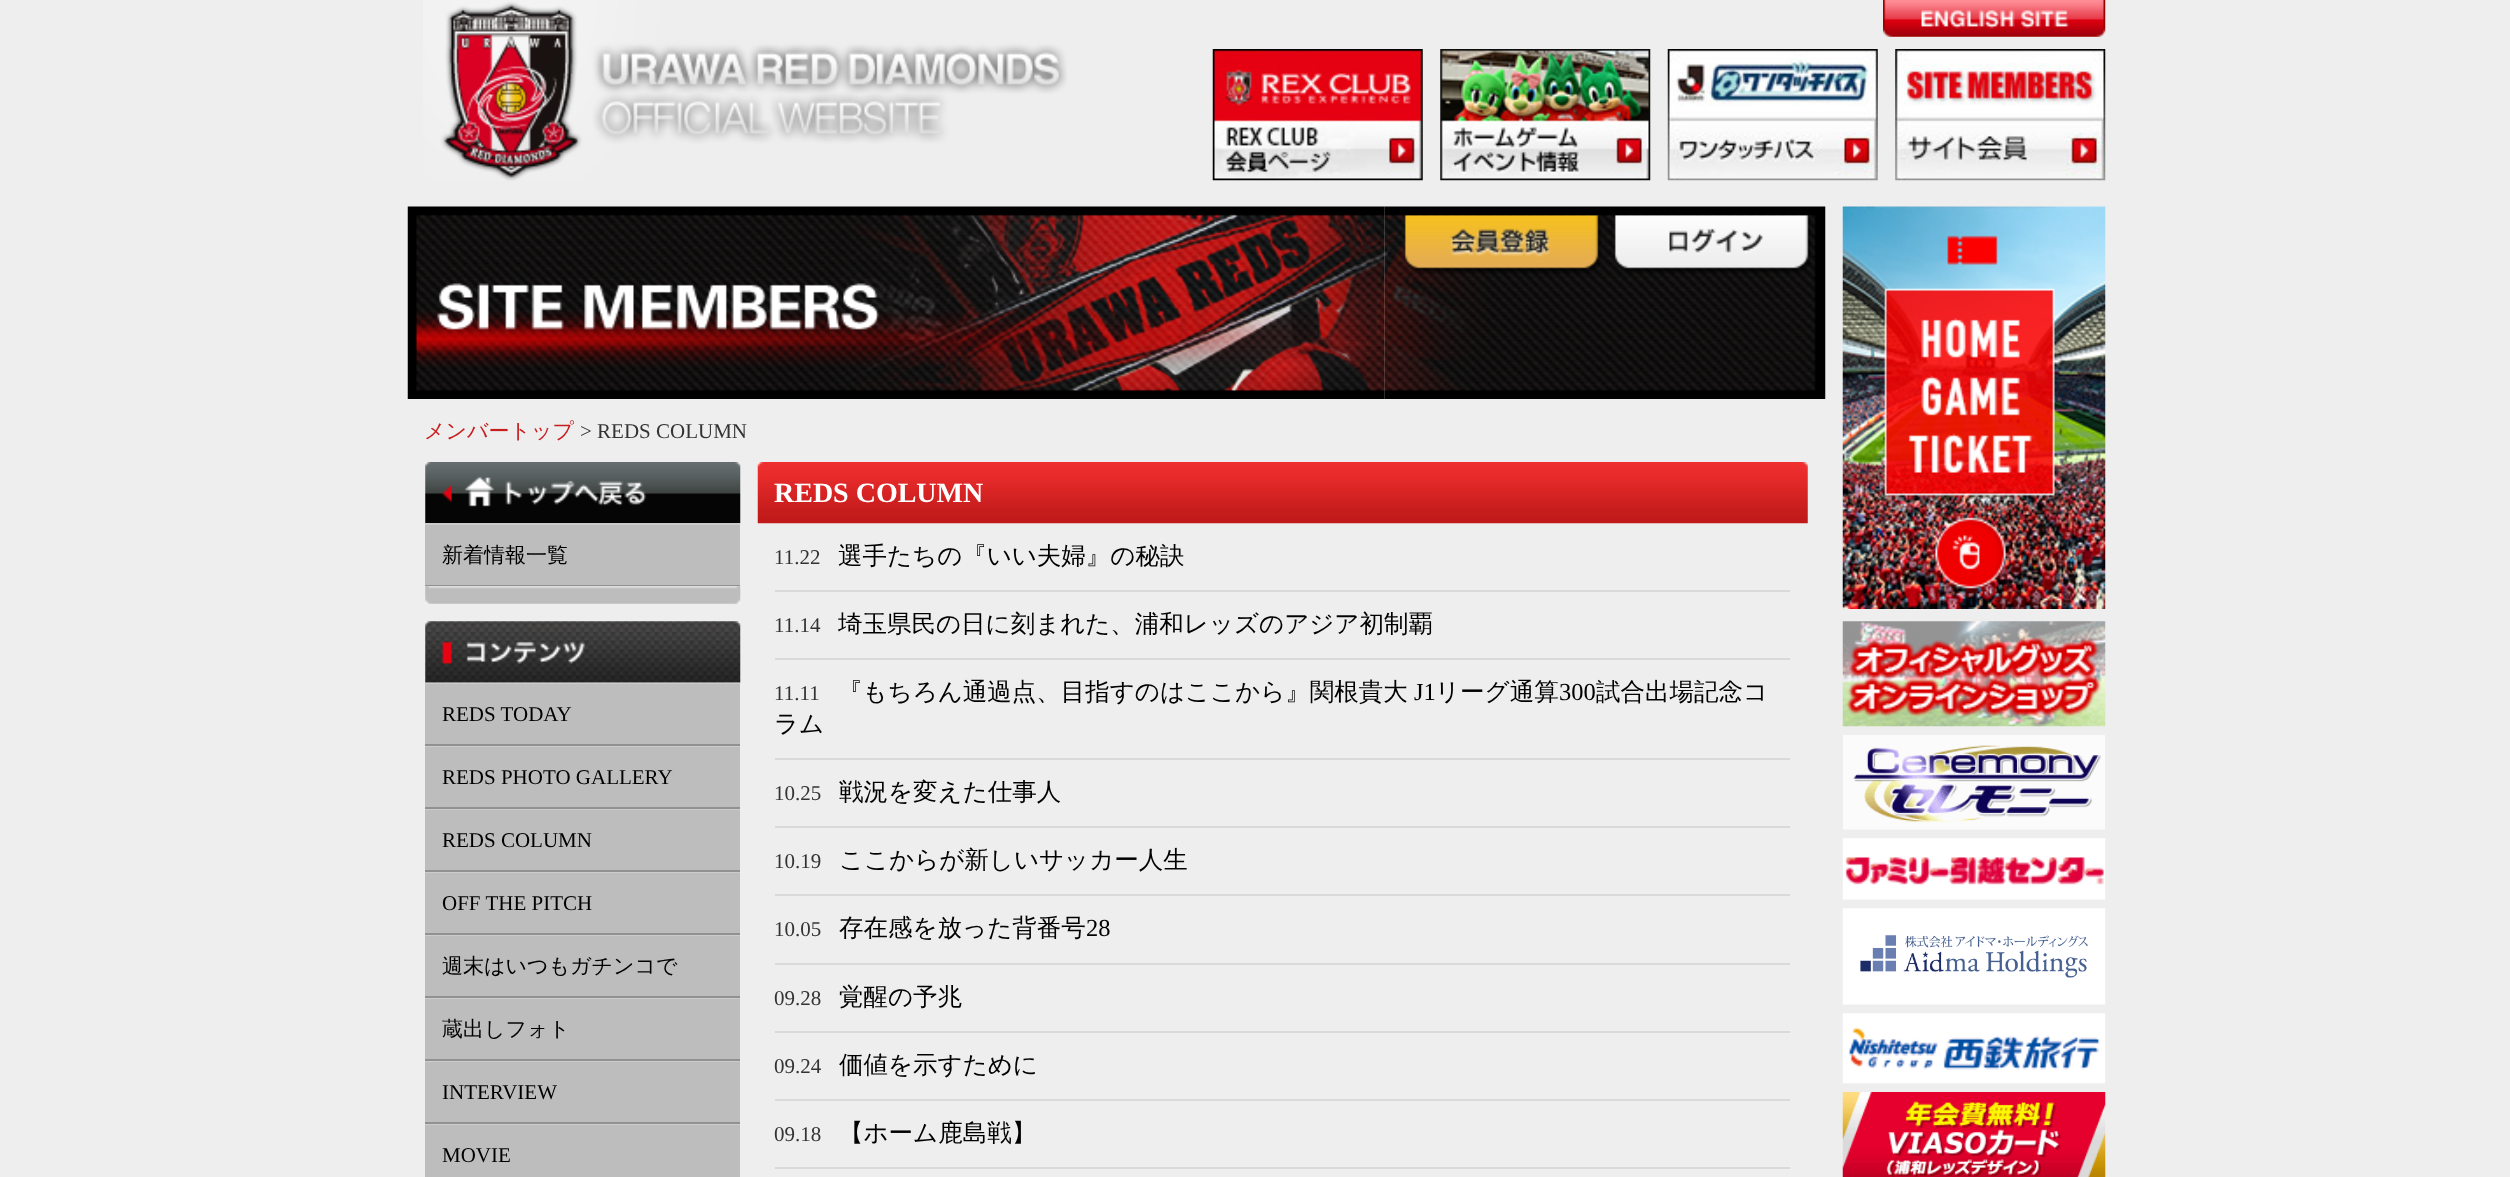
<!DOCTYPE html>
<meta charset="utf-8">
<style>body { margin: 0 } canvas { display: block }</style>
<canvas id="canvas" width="2510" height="1177"></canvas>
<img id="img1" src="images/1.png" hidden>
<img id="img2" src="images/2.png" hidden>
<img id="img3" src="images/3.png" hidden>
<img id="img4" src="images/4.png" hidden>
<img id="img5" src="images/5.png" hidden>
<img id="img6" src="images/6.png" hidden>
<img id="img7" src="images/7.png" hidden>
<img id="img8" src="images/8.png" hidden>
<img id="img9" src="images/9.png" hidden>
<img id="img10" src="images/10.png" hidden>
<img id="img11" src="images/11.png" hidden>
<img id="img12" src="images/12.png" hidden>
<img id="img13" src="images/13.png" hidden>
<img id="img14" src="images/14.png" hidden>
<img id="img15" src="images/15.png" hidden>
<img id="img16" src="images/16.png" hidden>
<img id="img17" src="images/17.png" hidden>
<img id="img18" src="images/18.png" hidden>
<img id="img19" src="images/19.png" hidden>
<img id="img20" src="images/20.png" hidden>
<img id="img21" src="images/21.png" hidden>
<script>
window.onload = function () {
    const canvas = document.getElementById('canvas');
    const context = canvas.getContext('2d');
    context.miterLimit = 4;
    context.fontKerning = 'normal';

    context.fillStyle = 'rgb(238, 238, 238)';
    context.fillRect(0, 0, 2510, 1177);
    context.drawImage(document.getElementById('img1'), 423, 0, 644, 181);
    context.drawImage(document.getElementById('img2'), 1883, 0, 223, 37);
    context.drawImage(document.getElementById('img3'), 1212, 49, 211, 132);
    context.drawImage(document.getElementById('img4'), 1440, 49, 211, 132);
    context.drawImage(document.getElementById('img5'), 1667, 49, 211, 132);
    context.drawImage(document.getElementById('img6'), 1895, 49, 211, 132);
    context.drawImage(document.getElementById('img7'), 407, 206, 978, 193);
    context.drawImage(document.getElementById('img8'), 1384, 206, 442, 193);
    context.drawImage(document.getElementById('img9'), 1404, 215, 197, 59);
    context.drawImage(document.getElementById('img10'), 1614, 215, 197, 58);
    context.drawImage(document.getElementById('img11'), 425, 462, 316, 62);
    context.drawImage(document.getElementById('img12'), 425, 586, 316, 18);
    context.fillStyle = 'rgb(204, 204, 204)';
    context.fillRect(425, 523, 315, 2);
    context.fillStyle = 'rgb(145, 145, 145)';
    context.fillRect(425, 585, 315, 1);
    context.fillStyle = 'rgb(189, 189, 189)';
    context.fillRect(425, 525, 315, 60);
    context.drawImage(document.getElementById('img13'), 425, 621, 316, 62);
    context.fillStyle = 'rgb(204, 204, 204)';
    context.fillRect(425, 683, 315, 1);
    context.fillStyle = 'rgb(145, 145, 145)';
    context.fillRect(425, 744, 315, 2);
    context.fillStyle = 'rgb(189, 189, 189)';
    context.fillRect(425, 684, 315, 60);
    context.fillStyle = 'rgb(204, 204, 204)';
    context.fillRect(425, 746, 315, 1);
    context.fillStyle = 'rgb(145, 145, 145)';
    context.fillRect(425, 807, 315, 2);
    context.fillStyle = 'rgb(189, 189, 189)';
    context.fillRect(425, 747, 315, 60);
    context.fillStyle = 'rgb(204, 204, 204)';
    context.fillRect(425, 809, 315, 1);
    context.fillStyle = 'rgb(145, 145, 145)';
    context.fillRect(425, 870, 315, 2);
    context.fillStyle = 'rgb(189, 189, 189)';
    context.fillRect(425, 810, 315, 60);
    context.fillStyle = 'rgb(204, 204, 204)';
    context.fillRect(425, 872, 315, 1);
    context.fillStyle = 'rgb(145, 145, 145)';
    context.fillRect(425, 933, 315, 2);
    context.fillStyle = 'rgb(189, 189, 189)';
    context.fillRect(425, 873, 315, 60);
    context.fillStyle = 'rgb(204, 204, 204)';
    context.fillRect(425, 935, 315, 1);
    context.fillStyle = 'rgb(145, 145, 145)';
    context.fillRect(425, 996, 315, 2);
    context.fillStyle = 'rgb(189, 189, 189)';
    context.fillRect(425, 936, 315, 60);
    context.fillStyle = 'rgb(204, 204, 204)';
    context.fillRect(425, 998, 315, 1);
    context.fillStyle = 'rgb(145, 145, 145)';
    context.fillRect(425, 1059, 315, 2);
    context.fillStyle = 'rgb(189, 189, 189)';
    context.fillRect(425, 999, 315, 60);
    context.fillStyle = 'rgb(204, 204, 204)';
    context.fillRect(425, 1061, 315, 1);
    context.fillStyle = 'rgb(145, 145, 145)';
    context.fillRect(425, 1122, 315, 2);
    context.fillStyle = 'rgb(189, 189, 189)';
    context.fillRect(425, 1062, 315, 60);
    context.fillStyle = 'rgb(204, 204, 204)';
    context.fillRect(425, 1124, 315, 1);
    context.fillStyle = 'rgb(189, 189, 189)';
    context.fillRect(425, 1125, 315, 52);
    context.drawImage(document.getElementById('img14'), 757, 462, 1051, 62);
    context.fillStyle = 'rgb(217, 217, 217)';
    context.fillRect(775, 590, 1015, 2);
    context.fillRect(775, 658, 1015, 2);
    context.fillRect(775, 758, 1015, 2);
    context.fillRect(775, 826, 1015, 2);
    context.fillRect(775, 894, 1015, 2);
    context.fillRect(775, 963, 1015, 2);
    context.fillRect(775, 1031, 1015, 2);
    context.fillRect(775, 1099, 1015, 2);
    context.fillRect(775, 1167, 1015, 2);
    context.drawImage(document.getElementById('img15'), 1842, 206, 264, 403);
    context.drawImage(document.getElementById('img16'), 1842, 621, 264, 106);
    context.drawImage(document.getElementById('img17'), 1843, 735, 262, 95);
    context.drawImage(document.getElementById('img18'), 1842, 838, 264, 62);
    context.drawImage(document.getElementById('img19'), 1842, 908, 264, 97);
    context.drawImage(document.getElementById('img20'), 1842, 1013, 264, 71);
    context.drawImage(document.getElementById('img21'), 1842, 1092, 264, 85);
    context.font = '500 21px WenQuanYi Zen Hei';
    context.fillStyle = 'rgb(201, 29, 29)';
    context.fillText('メンバートップ', 424, 438);
    context.font = '21px Liberation Serif';
    context.fillStyle = 'rgb(51, 51, 51)';
    context.fillText('> REDS COLUMN', 580, 438);
    context.font = '500 21px WenQuanYi Zen Hei';
    context.fillStyle = 'rgb(0, 0, 0)';
    context.fillText('新着情報一覧', 442, 562);
    context.font = '21px Liberation Serif';
    context.fillText('REDS TODAY', 442, 721);
    context.fillText('REDS PHOTO GALLERY', 442, 784);
    context.fillText('REDS COLUMN', 442, 847);
    context.fillText('OFF THE PITCH', 442, 910);
    context.font = '500 21px WenQuanYi Zen Hei';
    context.fillText('週末はいつもガチンコで', 442, 973);
    context.fillText('蔵出しフォト', 442, 1036);
    context.font = '21px Liberation Serif';
    context.fillText('INTERVIEW', 442, 1099);
    context.fillText('MOVIE', 442, 1162);
    context.font = 'bold 28px Liberation Serif';
    context.fillStyle = 'rgb(255, 255, 255)';
    context.fillText('REDS COLUMN', 774, 502);
    context.font = '21px Liberation Serif';
    context.fillStyle = 'rgb(51, 51, 51)';
    context.fillText('11.22', 774, 564);
    context.font = '500 24.5px WenQuanYi Zen Hei';
    context.fillStyle = 'rgb(0, 0, 0)';
    context.fillText('選手たちの『いい夫婦』の秘訣', 838, 564);
    context.font = '21px Liberation Serif';
    context.fillStyle = 'rgb(51, 51, 51)';
    context.fillText('11.14', 774, 632);
    context.font = '500 24.5px WenQuanYi Zen Hei';
    context.fillStyle = 'rgb(0, 0, 0)';
    context.fillText('埼玉県民の日に刻まれた、浦和レッズのアジア初制覇', 838, 632);
    context.font = '21px Liberation Serif';
    context.fillStyle = 'rgb(51, 51, 51)';
    context.fillText('11.11', 774, 700);
    context.font = '500 24.5px WenQuanYi Zen Hei';
    context.fillStyle = 'rgb(0, 0, 0)';
    context.fillText('『もちろん通過点、目指すのはここから』関根貴大', 838, 700);
    context.font = '24.5px Liberation Serif';
    context.fillText('J1', 1414, 700);
    context.font = '500 24.5px WenQuanYi Zen Hei';
    context.fillText('リーグ通算', 1435, 700);
    context.font = '24.5px Liberation Serif';
    context.fillText('300', 1559, 700);
    context.font = '500 24.5px WenQuanYi Zen Hei';
    context.fillText('試合出場記念コ', 1596, 700);
    context.fillText('ラム', 774, 732);
    context.font = '21px Liberation Serif';
    context.fillStyle = 'rgb(51, 51, 51)';
    context.fillText('10.25', 774, 800);
    context.font = '500 24.5px WenQuanYi Zen Hei';
    context.fillStyle = 'rgb(0, 0, 0)';
    context.fillText('戦況を変えた仕事人', 839, 800);
    context.font = '21px Liberation Serif';
    context.fillStyle = 'rgb(51, 51, 51)';
    context.fillText('10.19', 774, 868);
    context.font = '500 24.5px WenQuanYi Zen Hei';
    context.fillStyle = 'rgb(0, 0, 0)';
    context.fillText('ここからが新しいサッカー人生', 839, 868);
    context.font = '21px Liberation Serif';
    context.fillStyle = 'rgb(51, 51, 51)';
    context.fillText('10.05', 774, 936);
    context.font = '500 24.5px WenQuanYi Zen Hei';
    context.fillStyle = 'rgb(0, 0, 0)';
    context.fillText('存在感を放った背番号', 839, 936);
    context.font = '24.5px Liberation Serif';
    context.fillText('28', 1086, 936);
    context.font = '21px Liberation Serif';
    context.fillStyle = 'rgb(51, 51, 51)';
    context.fillText('09.28', 774, 1005);
    context.font = '500 24.5px WenQuanYi Zen Hei';
    context.fillStyle = 'rgb(0, 0, 0)';
    context.fillText('覚醒の予兆', 839, 1005);
    context.font = '21px Liberation Serif';
    context.fillStyle = 'rgb(51, 51, 51)';
    context.fillText('09.24', 774, 1073);
    context.font = '500 24.5px WenQuanYi Zen Hei';
    context.fillStyle = 'rgb(0, 0, 0)';
    context.fillText('価値を示すために', 839, 1073);
    context.font = '21px Liberation Serif';
    context.fillStyle = 'rgb(51, 51, 51)';
    context.fillText('09.18', 774, 1141);
    context.font = '500 24.5px WenQuanYi Zen Hei';
    context.fillStyle = 'rgb(0, 0, 0)';
    context.fillText('【ホーム鹿島戦】', 839, 1141);
};
</script>
